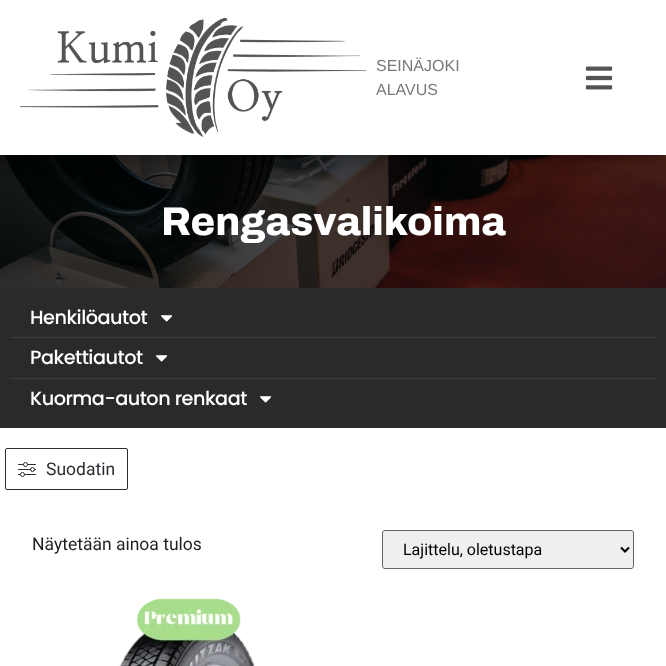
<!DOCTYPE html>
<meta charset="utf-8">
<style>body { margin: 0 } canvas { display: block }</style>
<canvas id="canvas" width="666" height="666"></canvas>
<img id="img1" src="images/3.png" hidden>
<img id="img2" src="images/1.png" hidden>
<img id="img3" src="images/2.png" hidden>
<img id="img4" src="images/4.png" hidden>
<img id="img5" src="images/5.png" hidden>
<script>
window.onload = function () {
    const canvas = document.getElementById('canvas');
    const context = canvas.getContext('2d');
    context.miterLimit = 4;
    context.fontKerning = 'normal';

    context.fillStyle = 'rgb(255, 255, 255)';
    context.fillRect(0, 0, 666, 666);
    context.drawImage(document.getElementById('img1'), 0, 155, 666, 133);
    context.save();
    context.beginPath();
    context.rect(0, 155, 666, 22);
    context.clip();
    context.fillStyle = 'rgba(0, 0, 0, 0.5)';
    context.filter = 'blur(12.5px)';
    context.beginPath();
    context.rect(0, 0, 666, 155);
    context.fill();
    context.filter = 'none';
    context.restore();
    context.drawImage(document.getElementById('img2'), 20, 17, 346, 121);
    context.drawImage(document.getElementById('img3'), 585, 66, 28, 24);
    context.fillStyle = 'rgb(42, 42, 42)';
    context.fillRect(0, 288, 666, 140);
    context.fillStyle = 'rgb(58, 62, 61)';
    context.fillRect(10, 337, 646, 1);
    context.drawImage(document.getElementById('img4'), 161, 315, 12, 7);
    context.fillRect(10, 378, 646, 1);
    context.drawImage(document.getElementById('img4'), 156, 355, 12, 7);
    context.drawImage(document.getElementById('img4'), 260, 396, 12, 7);
    context.beginPath();
    context.roundRect(5.5, 448.5, 122, 41, 1.5);
    context.strokeStyle = 'rgb(44, 45, 51)';
    context.stroke();
    context.fillStyle = 'rgb(44, 45, 51)';
    context.beginPath();
    context.roundRect(18, 464, 18, 1, 0.5);
    context.fill();
    context.fillStyle = 'rgb(255, 255, 255)';
    context.beginPath();
    context.arc(25.5, 464.5, 2, 0, 2 * Math.PI);
    context.fill();
    context.stroke();
    context.fillStyle = 'rgb(44, 45, 51)';
    context.beginPath();
    context.roundRect(18, 469, 18, 1, 0.5);
    context.fill();
    context.fillStyle = 'rgb(255, 255, 255)';
    context.beginPath();
    context.arc(32.5, 469.5, 2, 0, 2 * Math.PI);
    context.fill();
    context.stroke();
    context.fillStyle = 'rgb(44, 45, 51)';
    context.beginPath();
    context.roundRect(18, 474, 18, 1, 0.5);
    context.fill();
    context.fillStyle = 'rgb(255, 255, 255)';
    context.beginPath();
    context.arc(22.5, 474.5, 2, 0, 2 * Math.PI);
    context.fill();
    context.stroke();
    context.fillStyle = 'rgb(239, 239, 239)';
    context.beginPath();
    context.roundRect(382.5, 530.5, 251, 38, 2.5);
    context.fill();
    context.strokeStyle = 'rgb(102, 102, 102)';
    context.stroke();
    context.beginPath();
    context.moveTo(621, 547.5);
    context.lineTo(625, 551.5);
    context.lineTo(629, 547.5);
    context.strokeStyle = 'rgb(0, 0, 0)';
    context.lineWidth = 2;
    context.stroke();
    context.drawImage(document.getElementById('img5'), 119, 598, 136, 68);
    context.font = '16px Liberation Sans';
    context.fillStyle = 'rgb(121, 121, 121)';
    context.fillText('SEINÄJOKI', 376, 71);
    context.fillText('ALAVUS', 376, 95);
    context.font = '800 40px Archivo';
    context.fillStyle = 'rgb(255, 255, 255)';
    context.fillText('Rengasvalikoima', 161, 235);
    context.letterSpacing = '-0.5px';
    context.font = '500 19.25px Poppins';
    context.fillText('Henkilöautot', 30, 324);
    context.fillText('Pakettiautot', 30, 364);
    context.fillText('Kuorma-auton renkaat', 30, 405);
    context.letterSpacing = '0px';
    context.font = '17.5px Roboto';
    context.fillStyle = 'rgb(44, 45, 51)';
    context.fillText('Suodatin', 46, 475);
    context.fillStyle = 'rgb(35, 31, 32)';
    context.fillText('Näytetään ainoa tulos', 32, 550);
    context.font = '16px Roboto';
    context.fillStyle = 'rgb(0, 0, 0)';
    context.fillText('Lajittelu, oletustapa', 403, 555);
};
</script>
